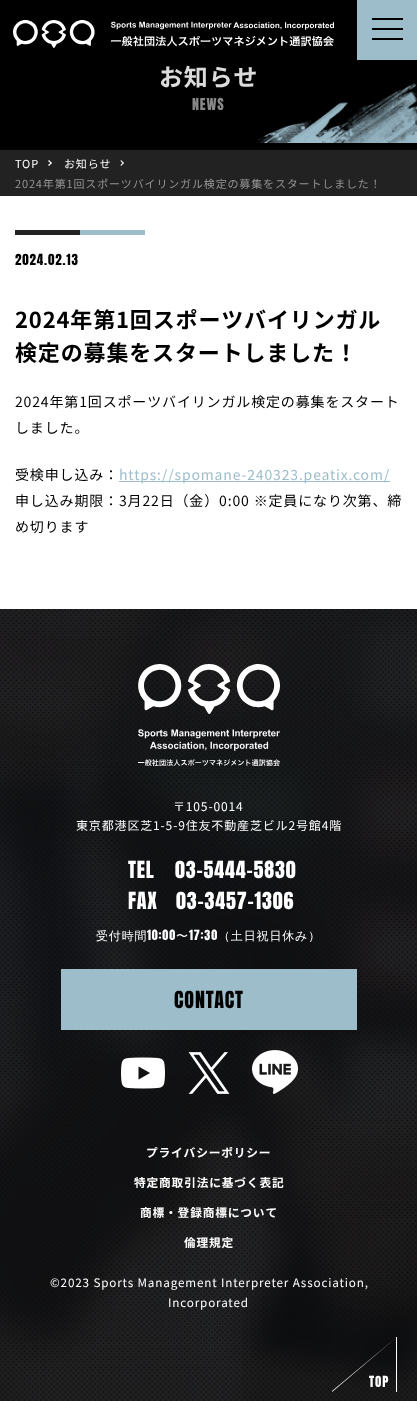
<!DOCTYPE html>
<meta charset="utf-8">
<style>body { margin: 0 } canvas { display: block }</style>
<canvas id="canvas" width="417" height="1401"></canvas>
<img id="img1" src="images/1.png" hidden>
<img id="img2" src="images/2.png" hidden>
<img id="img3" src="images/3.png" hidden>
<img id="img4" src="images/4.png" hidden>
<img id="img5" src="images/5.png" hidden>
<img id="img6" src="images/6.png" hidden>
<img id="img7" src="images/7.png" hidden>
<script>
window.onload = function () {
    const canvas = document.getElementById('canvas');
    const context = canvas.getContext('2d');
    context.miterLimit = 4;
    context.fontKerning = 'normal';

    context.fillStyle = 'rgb(255, 255, 255)';
    context.fillRect(0, 0, 417, 1401);
    context.fillStyle = 'rgb(0, 0, 0)';
    context.fillRect(0, 0, 357, 60);
    context.drawImage(document.getElementById('img1'), 13, 20, 321, 28);
    context.fillStyle = 'rgb(157, 189, 203)';
    context.fillRect(357, 0, 60, 60);
    context.fillStyle = 'rgb(0, 0, 0)';
    context.fillRect(372, 18, 31, 2);
    context.fillRect(372, 28, 31, 2);
    context.fillRect(372, 38, 31, 2);
    context.fillRect(0, 60, 417, 90);
    context.drawImage(document.getElementById('img2'), 257, 83, 160, 60);
    context.fillStyle = 'rgb(34, 34, 34)';
    context.fillRect(0, 150, 417, 46);
    context.fillStyle = 'rgb(255, 255, 255)';
    context.beginPath();
    context.moveTo(49, 160);
    context.lineTo(52, 163);
    context.lineTo(51, 163.5);
    context.lineTo(48, 161);
    context.closePath();
    context.fill();
    context.beginPath();
    context.moveTo(51, 162.5);
    context.lineTo(52, 163);
    context.lineTo(49, 166);
    context.lineTo(48, 165);
    context.closePath();
    context.fill();
    context.beginPath();
    context.moveTo(121, 160);
    context.lineTo(124, 163);
    context.lineTo(123, 163.5);
    context.lineTo(120.5, 161);
    context.closePath();
    context.fill();
    context.beginPath();
    context.moveTo(123, 162.5);
    context.lineTo(124, 163);
    context.lineTo(121, 166);
    context.lineTo(120.5, 165);
    context.closePath();
    context.fill();
    context.fillStyle = 'rgb(34, 34, 34)';
    context.fillRect(15, 230, 65, 5);
    context.fillStyle = 'rgb(157, 189, 203)';
    context.fillRect(80, 230, 65, 5);
    context.fillRect(119, 481, 271, 1);
    context.drawImage(document.getElementById('img3'), 0, 609, 417, 792);
    context.drawImage(document.getElementById('img4'), 138, 664, 142, 102);
    context.fillRect(61, 969, 296, 61);
    context.drawImage(document.getElementById('img5'), 121, 1057, 44, 32);
    context.drawImage(document.getElementById('img6'), 188, 1052, 42, 42);
    context.drawImage(document.getElementById('img7'), 252, 1050, 46, 44);
    context.fillStyle = 'rgb(255, 255, 255)';
    context.beginPath();
    context.moveTo(332, 1391);
    context.lineTo(397, 1337);
    context.lineTo(332, 1392);
    context.closePath();
    context.fill();
    context.fillRect(396, 1337, 1, 55);
    context.letterSpacing = '0.85px';
    context.font = 'bold 24px Noto Sans JP';
    context.fillStyle = 'rgb(220, 220, 220)';
    context.fillText('お知らせ', 159, 86);
    context.font = '14px Anton';
    context.fillStyle = 'rgb(136, 136, 136)';
    context.fillText('NEWS', 192, 110);
    context.font = '11px Noto Sans JP';
    context.fillStyle = 'rgb(255, 255, 255)';
    context.fillText('TOP', 15, 168);
    context.fillText('お知らせ', 64, 168);
    context.fillStyle = 'rgb(148, 148, 148)';
    context.fillText('2024年第1回スポーツバイリンガル検定の募集をスタートしました！', 15, 188);
    context.font = '13px Anton';
    context.fillStyle = 'rgb(0, 0, 0)';
    context.fillText('2024.02.13', 15, 265);
    context.font = 'bold 22px Noto Sans JP';
    context.fillText('2024年第1回スポーツバイリンガル', 15, 328);
    context.fillText('検定の募集をスタートしました！', 15, 361);
    context.font = '14px Noto Sans JP';
    context.fillText('2024年第1回スポーツバイリンガル検定の募集をスタート', 15, 407);
    context.fillText('しました。', 15, 433);
    context.fillText('受検申し込み：', 15, 480);
    context.fillStyle = 'rgb(157, 189, 203)';
    context.fillText('https://spomane-240323.peatix.com/', 119, 480);
    context.fillStyle = 'rgb(0, 0, 0)';
    context.fillText('申し込み期限：3月22日（金）0:00 ※定員になり次第、締', 15, 506);
    context.fillText('め切ります', 15, 532);
    context.font = '12px Noto Sans JP';
    context.fillStyle = 'rgb(255, 255, 255)';
    context.fillText('〒105-0014', 173, 811);
    context.fillText('東京都港区芝1-5-9住友不動産芝ビル2号館4階', 76, 830);
    context.font = '20px Anton';
    context.fillText('TEL', 128, 878);
    context.fillText('03-5444-5830', 175, 878);
    context.fillText('FAX', 128, 909);
    context.fillText('03-3457-1306', 176, 909);
    context.font = '500 12px WenQuanYi Zen Hei';
    context.fillText('受付時間', 96, 940);
    context.font = '12px Anton';
    context.fillText('10:00', 147, 940);
    context.font = '500 12px WenQuanYi Zen Hei';
    context.fillText('〜', 176, 940);
    context.font = '12px Anton';
    context.fillText('17:30', 189, 940);
    context.font = '500 12px WenQuanYi Zen Hei';
    context.fillText('（土日祝日休み）', 218, 940);
    context.font = '20px Anton';
    context.fillStyle = 'rgb(0, 0, 0)';
    context.fillText('CONTACT', 174, 1008);
    context.font = 'bold 11.7px Noto Sans JP';
    context.fillStyle = 'rgb(255, 255, 255)';
    context.fillText('プライバシーポリシー', 146, 1157);
    context.fillText('特定商取引法に基づく表記', 134, 1187);
    context.fillText('商標・登録商標について', 140, 1217);
    context.fillText('倫理規定', 184, 1247);
    context.font = '11.7px Noto Sans JP';
    context.fillText('©2023 Sports Management Interpreter Association,', 50, 1287);
    context.fillText('Incorporated', 168, 1307);
    context.font = '13px Anton';
    context.fillText('TOP', 369, 1387);
};
</script>
